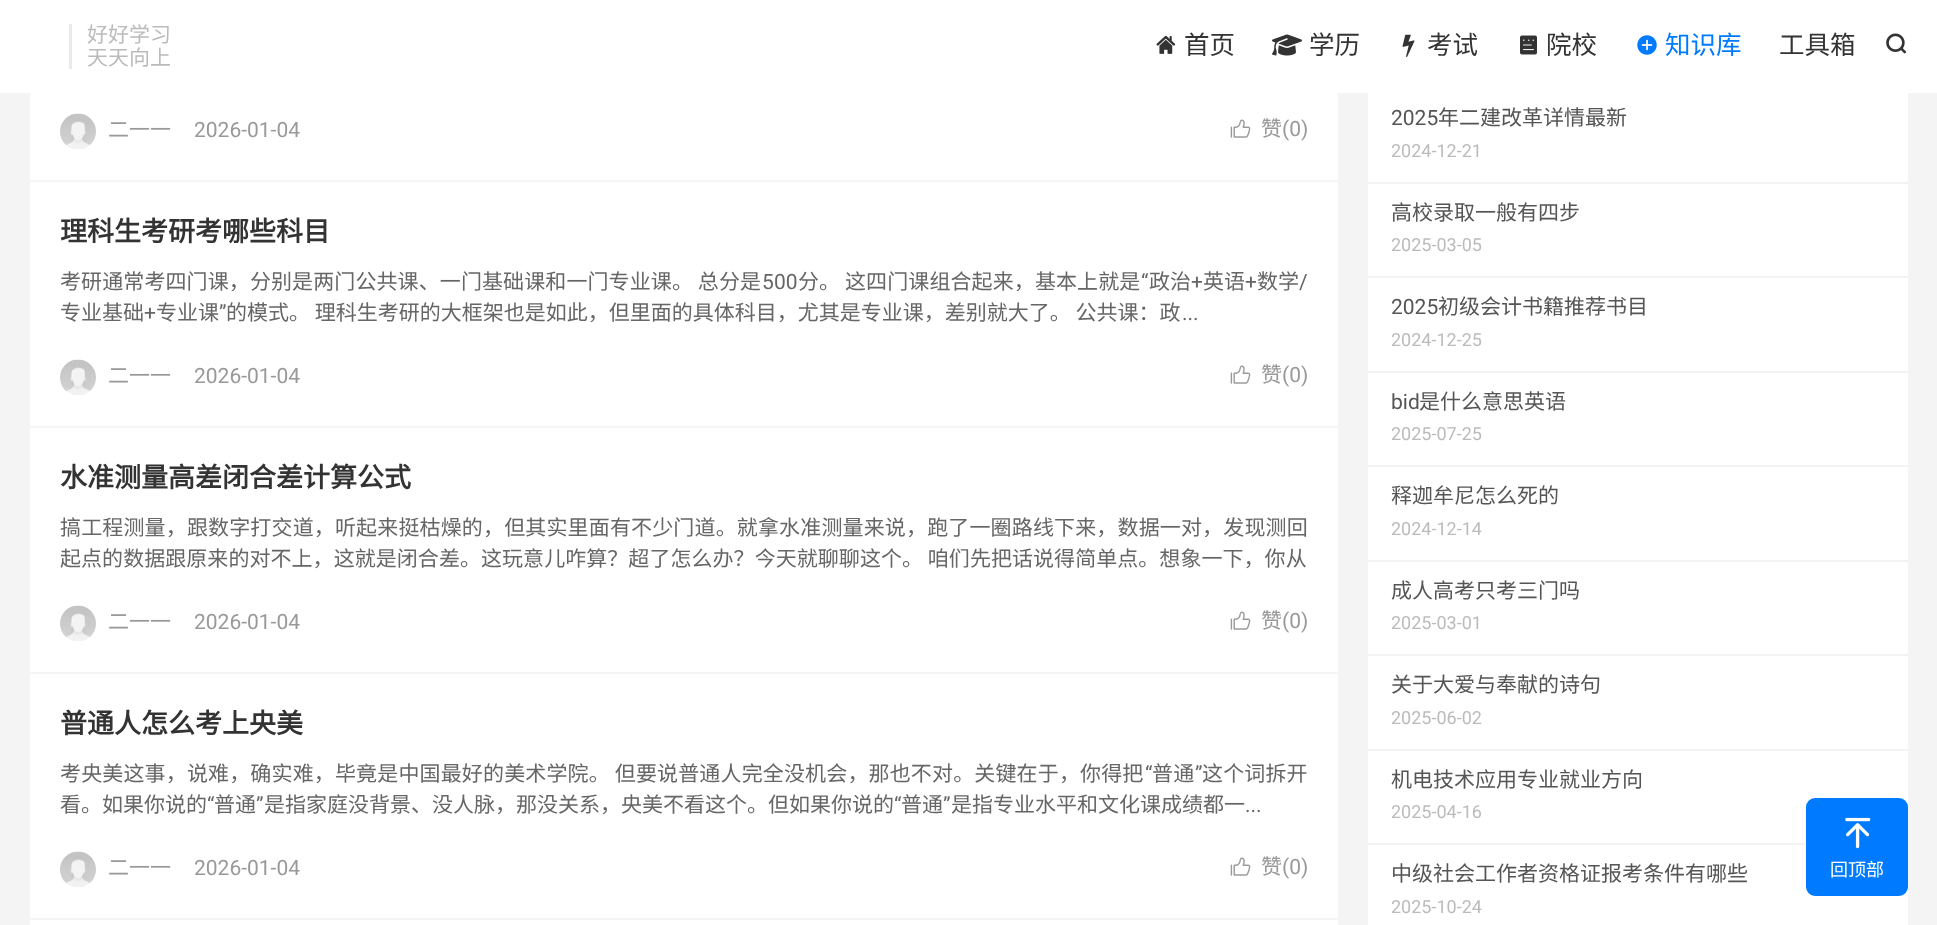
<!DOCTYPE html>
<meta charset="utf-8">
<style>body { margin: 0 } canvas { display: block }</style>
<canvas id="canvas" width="1937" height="925"></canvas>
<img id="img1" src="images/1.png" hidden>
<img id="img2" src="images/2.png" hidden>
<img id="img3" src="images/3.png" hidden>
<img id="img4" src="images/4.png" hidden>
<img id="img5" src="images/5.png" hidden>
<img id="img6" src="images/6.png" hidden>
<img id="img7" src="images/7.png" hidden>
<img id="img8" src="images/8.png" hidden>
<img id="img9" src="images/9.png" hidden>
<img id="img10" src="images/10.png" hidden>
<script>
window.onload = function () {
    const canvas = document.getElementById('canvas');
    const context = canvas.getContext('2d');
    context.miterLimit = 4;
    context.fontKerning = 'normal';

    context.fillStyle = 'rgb(244, 244, 244)';
    context.fillRect(0, 0, 1937, 925);
    context.fillStyle = 'rgb(255, 255, 255)';
    context.fillRect(0, 0, 1937, 93);
    context.fillStyle = 'rgb(234, 234, 234)';
    context.fillRect(69, 24, 3, 45);
    context.drawImage(document.getElementById('img1'), 1156, 35, 20, 19);
    context.drawImage(document.getElementById('img2'), 1272, 34, 30, 22);
    context.drawImage(document.getElementById('img3'), 1402, 34, 13, 23);
    context.drawImage(document.getElementById('img4'), 1520, 35, 17, 20);
    context.drawImage(document.getElementById('img5'), 1637, 35, 20, 20);
    context.drawImage(document.getElementById('img6'), 1886, 33, 20, 21);
    context.fillStyle = 'rgb(255, 255, 255)';
    context.fillRect(30, 93, 1308, 87);
    context.drawImage(document.getElementById('img7'), 60, 113, 36, 36);
    context.drawImage(document.getElementById('img8'), 1230, 119, 21, 19);
    context.fillRect(30, 182, 1308, 244);
    context.drawImage(document.getElementById('img7'), 60, 359, 36, 36);
    context.drawImage(document.getElementById('img8'), 1230, 365, 21, 19);
    context.fillRect(30, 428, 1308, 244);
    context.drawImage(document.getElementById('img7'), 60, 605, 36, 36);
    context.drawImage(document.getElementById('img8'), 1230, 611, 21, 19);
    context.fillRect(30, 674, 1308, 244);
    context.drawImage(document.getElementById('img9'), 60, 851, 36, 36);
    context.drawImage(document.getElementById('img8'), 1230, 857, 21, 19);
    context.fillRect(30, 920, 1308, 5);
    context.fillRect(1368, 93, 540, 832);
    context.fillStyle = 'rgb(243, 243, 243)';
    context.fillRect(1368, 182, 540, 2);
    context.fillRect(1368, 276, 540, 2);
    context.fillRect(1368, 371, 540, 2);
    context.fillRect(1368, 465, 540, 2);
    context.fillRect(1368, 560, 540, 2);
    context.fillRect(1368, 654, 540, 2);
    context.fillRect(1368, 749, 540, 2);
    context.fillRect(1368, 843, 438, 2);
    context.fillStyle = 'rgb(0, 123, 255)';
    context.beginPath();
    context.roundRect(1807, 799, 100, 96, 8);
    context.fill();
    context.strokeStyle = 'rgb(0, 123, 255)';
    context.lineWidth = 2;
    context.stroke();
    context.drawImage(document.getElementById('img10'), 1845, 817, 26, 32);
    context.font = '21px Noto Sans CJK SC';
    context.fillStyle = 'rgb(187, 187, 187)';
    context.fillText('好好学习', 87, 42);
    context.fillText('天天向上', 87, 65);
    context.font = '25.5px Noto Sans CJK SC';
    context.fillStyle = 'rgb(51, 51, 51)';
    context.fillText('首页', 1184, 54);
    context.fillText('学历', 1309, 54);
    context.fillText('考试', 1427, 54);
    context.fillText('院校', 1546, 54);
    context.fillStyle = 'rgb(0, 123, 255)';
    context.fillText('知识库', 1665, 54);
    context.fillStyle = 'rgb(51, 51, 51)';
    context.fillText('工具箱', 1779, 54);
    context.font = '21px Noto Sans CJK SC';
    context.fillStyle = 'rgb(153, 153, 153)';
    context.fillText('二一一', 108, 137);
    context.font = '21px Roboto';
    context.fillText('2026-01-04', 194, 137);
    context.font = '21px Noto Sans CJK SC';
    context.fillText('赞', 1261, 136);
    context.font = '21px Roboto';
    context.fillText('(0)', 1282, 136);
    context.font = 'bold 27px Noto Sans CJK SC';
    context.fillStyle = 'rgb(51, 51, 51)';
    context.fillText('理科生考研考哪些科目', 60, 241);
    context.letterSpacing = '0.1px';
    context.font = '21px Noto Sans CJK SC';
    context.fillStyle = 'rgb(102, 102, 102)';
    context.fillText('考研通常考四门课，分别是两门公共课、一门基础课和一门专业课。 总分是', 60, 289);
    context.font = '21px Roboto';
    context.fillText('500', 762, 289);
    context.font = '21px Noto Sans CJK SC';
    context.fillText('分。 这四门课组合起来，基本上就是', 798, 289);
    context.font = '21px Roboto';
    context.fillText('“', 1141, 289);
    context.font = '21px Noto Sans CJK SC';
    context.fillText('政治', 1149, 289);
    context.font = '21px Roboto';
    context.fillText('+', 1191, 289);
    context.font = '21px Noto Sans CJK SC';
    context.fillText('英语', 1203, 289);
    context.font = '21px Roboto';
    context.fillText('+', 1245, 289);
    context.font = '21px Noto Sans CJK SC';
    context.fillText('数学', 1257, 289);
    context.font = '21px Roboto';
    context.fillText('/', 1299, 289);
    context.letterSpacing = '0px';
    context.font = '21px Noto Sans CJK SC';
    context.fillText('专业基础', 60, 320);
    context.font = '21px Roboto';
    context.fillText('+', 144, 320);
    context.font = '21px Noto Sans CJK SC';
    context.fillText('专业课', 156, 320);
    context.font = '21px Roboto';
    context.fillText('”', 219, 320);
    context.font = '21px Noto Sans CJK SC';
    context.fillText('的模式。 理科生考研的大框架也是如此，但里面的具体科目，尤其是专业课，差别就大了。 公共课：政', 226, 320);
    context.font = '21px Roboto';
    context.fillText('...', 1182, 320);
    context.font = '21px Noto Sans CJK SC';
    context.fillStyle = 'rgb(153, 153, 153)';
    context.fillText('二一一', 108, 383);
    context.font = '21px Roboto';
    context.fillText('2026-01-04', 194, 383);
    context.font = '21px Noto Sans CJK SC';
    context.fillText('赞', 1261, 382);
    context.font = '21px Roboto';
    context.fillText('(0)', 1282, 382);
    context.font = 'bold 27px Noto Sans CJK SC';
    context.fillStyle = 'rgb(51, 51, 51)';
    context.fillText('水准测量高差闭合差计算公式', 60, 487);
    context.letterSpacing = '0.15px';
    context.font = '21px Noto Sans CJK SC';
    context.fillStyle = 'rgb(102, 102, 102)';
    context.fillText('搞工程测量，跟数字打交道，听起来挺枯燥的，但其实里面有不少门道。就拿水准测量来说，跑了一圈路线下来，数据一对，发现测回', 60, 535);
    context.letterSpacing = '0.05px';
    context.fillText('起点的数据跟原来的对不上，这就是闭合差。这玩意儿咋算？超了怎么办？今天就聊聊这个。 咱们先把话说得简单点。想象一下，你从', 60, 566);
    context.letterSpacing = '0px';
    context.fillStyle = 'rgb(153, 153, 153)';
    context.fillText('二一一', 108, 629);
    context.font = '21px Roboto';
    context.fillText('2026-01-04', 194, 629);
    context.font = '21px Noto Sans CJK SC';
    context.fillText('赞', 1261, 628);
    context.font = '21px Roboto';
    context.fillText('(0)', 1282, 628);
    context.font = 'bold 27px Noto Sans CJK SC';
    context.fillStyle = 'rgb(51, 51, 51)';
    context.fillText('普通人怎么考上央美', 60, 733);
    context.letterSpacing = '0.15px';
    context.font = '21px Noto Sans CJK SC';
    context.fillStyle = 'rgb(102, 102, 102)';
    context.fillText('考央美这事，说难，确实难，毕竟是中国最好的美术学院。 但要说普通人完全没机会，那也不对。关键在于，你得把', 60, 781);
    context.font = '21px Roboto';
    context.fillText('“', 1145, 781);
    context.font = '21px Noto Sans CJK SC';
    context.fillText('普通', 1152, 781);
    context.font = '21px Roboto';
    context.fillText('”', 1195, 781);
    context.font = '21px Noto Sans CJK SC';
    context.fillText('这个词拆开', 1202, 781);
    context.letterSpacing = '0px';
    context.fillText('看。如果你说的', 60, 812);
    context.font = '21px Roboto';
    context.fillText('“', 207, 812);
    context.font = '21px Noto Sans CJK SC';
    context.fillText('普通', 214, 812);
    context.font = '21px Roboto';
    context.fillText('”', 256, 812);
    context.font = '21px Noto Sans CJK SC';
    context.fillText('是指家庭没背景、没人脉，那没关系，央美不看这个。但如果你说的', 264, 812);
    context.font = '21px Roboto';
    context.fillText('“', 894, 812);
    context.font = '21px Noto Sans CJK SC';
    context.fillText('普通', 901, 812);
    context.font = '21px Roboto';
    context.fillText('”', 943, 812);
    context.font = '21px Noto Sans CJK SC';
    context.fillText('是指专业水平和文化课成绩都一', 951, 812);
    context.font = '21px Roboto';
    context.fillText('...', 1245, 812);
    context.font = '21px Noto Sans CJK SC';
    context.fillStyle = 'rgb(153, 153, 153)';
    context.fillText('二一一', 108, 875);
    context.font = '21px Roboto';
    context.fillText('2026-01-04', 194, 875);
    context.font = '21px Noto Sans CJK SC';
    context.fillText('赞', 1261, 874);
    context.font = '21px Roboto';
    context.fillText('(0)', 1282, 874);
    context.fillStyle = 'rgb(85, 85, 85)';
    context.fillText('2025', 1391, 125);
    context.font = '21px Noto Sans CJK SC';
    context.fillText('年二建改革详情最新', 1438, 125);
    context.font = '18px Roboto';
    context.fillStyle = 'rgb(187, 187, 187)';
    context.fillText('2024-12-21', 1391, 157);
    context.font = '21px Noto Sans CJK SC';
    context.fillStyle = 'rgb(85, 85, 85)';
    context.fillText('高校录取一般有四步', 1391, 220);
    context.font = '18px Roboto';
    context.fillStyle = 'rgb(187, 187, 187)';
    context.fillText('2025-03-05', 1391, 251);
    context.font = '21px Roboto';
    context.fillStyle = 'rgb(85, 85, 85)';
    context.fillText('2025', 1391, 314);
    context.font = '21px Noto Sans CJK SC';
    context.fillText('初级会计书籍推荐书目', 1438, 314);
    context.font = '18px Roboto';
    context.fillStyle = 'rgb(187, 187, 187)';
    context.fillText('2024-12-25', 1391, 346);
    context.font = '21px Roboto';
    context.fillStyle = 'rgb(85, 85, 85)';
    context.fillText('bid', 1391, 409);
    context.font = '21px Noto Sans CJK SC';
    context.fillText('是什么意思英语', 1419, 409);
    context.font = '18px Roboto';
    context.fillStyle = 'rgb(187, 187, 187)';
    context.fillText('2025-07-25', 1391, 440);
    context.font = '21px Noto Sans CJK SC';
    context.fillStyle = 'rgb(85, 85, 85)';
    context.fillText('释迦牟尼怎么死的', 1391, 503);
    context.font = '18px Roboto';
    context.fillStyle = 'rgb(187, 187, 187)';
    context.fillText('2024-12-14', 1391, 535);
    context.font = '21px Noto Sans CJK SC';
    context.fillStyle = 'rgb(85, 85, 85)';
    context.fillText('成人高考只考三门吗', 1391, 598);
    context.font = '18px Roboto';
    context.fillStyle = 'rgb(187, 187, 187)';
    context.fillText('2025-03-01', 1391, 629);
    context.font = '21px Noto Sans CJK SC';
    context.fillStyle = 'rgb(85, 85, 85)';
    context.fillText('关于大爱与奉献的诗句', 1391, 692);
    context.font = '18px Roboto';
    context.fillStyle = 'rgb(187, 187, 187)';
    context.fillText('2025-06-02', 1391, 724);
    context.font = '21px Noto Sans CJK SC';
    context.fillStyle = 'rgb(85, 85, 85)';
    context.fillText('机电技术应用专业就业方向', 1391, 787);
    context.font = '18px Roboto';
    context.fillStyle = 'rgb(187, 187, 187)';
    context.fillText('2025-04-16', 1391, 818);
    context.font = '21px Noto Sans CJK SC';
    context.fillStyle = 'rgb(85, 85, 85)';
    context.fillText('中级社会工作者资格证报考条件有哪些', 1391, 881);
    context.font = '18px Roboto';
    context.fillStyle = 'rgb(187, 187, 187)';
    context.fillText('2025-10-24', 1391, 913);
    context.font = '18px Noto Sans CJK SC';
    context.fillStyle = 'rgb(255, 255, 255)';
    context.fillText('回顶部', 1830, 876);
};
</script>
